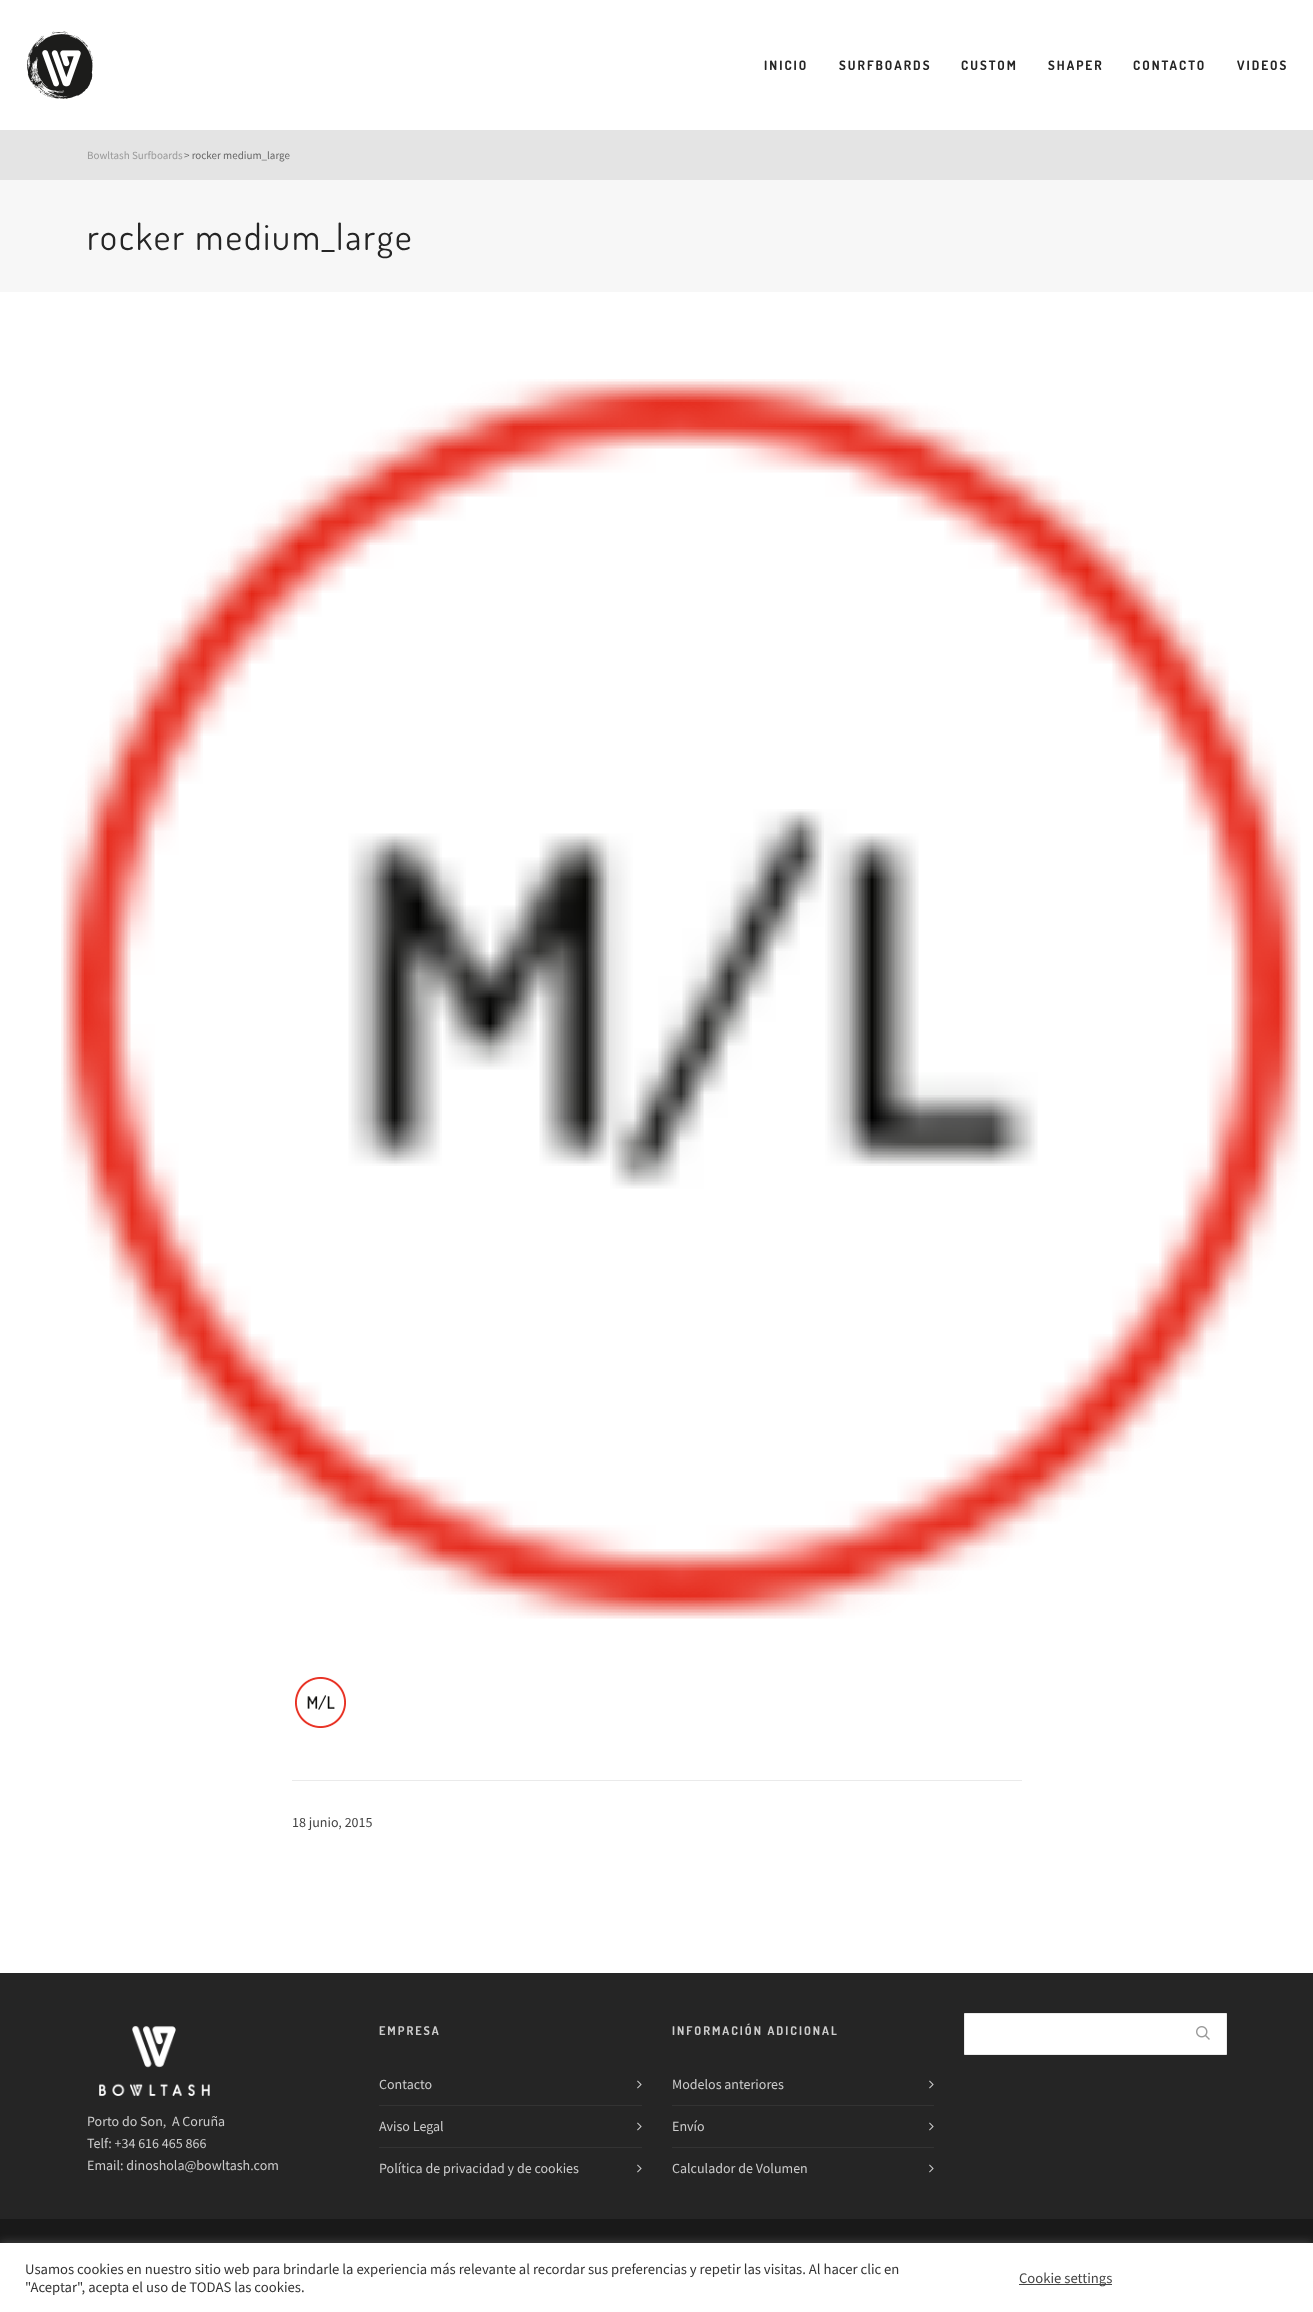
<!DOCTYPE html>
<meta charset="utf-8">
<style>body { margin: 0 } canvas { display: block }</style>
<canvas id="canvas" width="1313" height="2312"></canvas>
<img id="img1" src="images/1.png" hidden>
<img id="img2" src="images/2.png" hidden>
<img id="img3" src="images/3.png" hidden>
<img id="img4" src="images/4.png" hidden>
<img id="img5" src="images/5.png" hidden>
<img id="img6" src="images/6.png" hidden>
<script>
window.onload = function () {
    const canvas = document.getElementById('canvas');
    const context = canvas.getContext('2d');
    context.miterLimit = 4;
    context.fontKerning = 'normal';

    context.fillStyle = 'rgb(255, 255, 255)';
    context.fillRect(0, 0, 1313, 2312);
    context.drawImage(document.getElementById('img1'), 27, 31, 66, 68);
    context.fillStyle = 'rgb(228, 228, 228)';
    context.fillRect(0, 130, 1313, 50);
    context.fillStyle = 'rgb(247, 247, 247)';
    context.fillRect(0, 180, 1313, 112);
    context.drawImage(document.getElementById('img2'), 61, 379, 1240, 1240);
    context.drawImage(document.getElementById('img3'), 295, 1677, 51, 51);
    context.fillStyle = 'rgb(234, 234, 234)';
    context.fillRect(292, 1780, 730, 1);
    context.fillStyle = 'rgb(37, 37, 37)';
    context.fillRect(0, 1973, 1313, 246);
    context.drawImage(document.getElementById('img4'), 99, 2026, 111, 70);
    context.drawImage(document.getElementById('img5'), 637, 2080, 5, 9);
    context.fillStyle = 'rgb(51, 51, 51)';
    context.fillRect(379, 2105, 263, 1);
    context.drawImage(document.getElementById('img5'), 637, 2122, 5, 9);
    context.fillRect(379, 2147, 263, 1);
    context.drawImage(document.getElementById('img5'), 637, 2164, 5, 9);
    context.drawImage(document.getElementById('img5'), 929, 2080, 5, 9);
    context.fillRect(672, 2105, 262, 1);
    context.drawImage(document.getElementById('img5'), 929, 2122, 5, 9);
    context.fillRect(672, 2147, 262, 1);
    context.drawImage(document.getElementById('img5'), 929, 2164, 5, 9);
    context.fillStyle = 'rgb(255, 255, 255)';
    context.beginPath();
    context.rect(964.5, 2013.5, 262, 41);
    context.fill();
    context.strokeStyle = 'rgb(234, 234, 234)';
    context.stroke();
    context.drawImage(document.getElementById('img6'), 1196, 2026, 14, 14);
    context.fillStyle = 'rgb(25, 25, 25)';
    context.fillRect(0, 2219, 1313, 24);
    context.fillStyle = 'rgba(172, 171, 171, 0.3)';
    context.filter = 'blur(5px)';
    context.beginPath();
    context.rect(0, 2242, 1313, 69);
    context.fill();
    context.filter = 'none';
    context.fillStyle = 'rgb(255, 255, 255)';
    context.fillRect(0, 2243, 1313, 69);
    context.fillStyle = 'rgb(68, 68, 68)';
    context.fillRect(1019, 2284, 93, 1);
    context.letterSpacing = '2px';
    context.font = 'bold 13px Dosis';
    context.fillStyle = 'rgb(37, 37, 37)';
    context.fillText('INICIO', 764, 70);
    context.fillText('SURFBOARDS', 839, 70);
    context.fillText('CUSTOM', 961, 70);
    context.fillText('SHAPER', 1048, 70);
    context.fillText('CONTACTO', 1133, 70);
    context.fillText('VIDEOS', 1237, 70);
    context.letterSpacing = '0px';
    context.font = '11px Source Sans Pro';
    context.fillStyle = 'rgb(153, 153, 153)';
    context.fillText('Bowltash Surfboards', 87, 159);
    context.fillStyle = 'rgb(102, 102, 102)';
    context.fillText('> rocker medium_large', 184, 159);
    context.letterSpacing = '2px';
    context.font = '36px Dosis';
    context.fillStyle = 'rgb(37, 37, 37)';
    context.fillText('rocker medium_large', 87, 250);
    context.letterSpacing = '0px';
    context.font = '14px Source Sans Pro';
    context.fillStyle = 'rgb(68, 68, 68)';
    context.fillText('18 junio, 2015', 292, 1827);
    context.fillStyle = 'rgb(204, 204, 204)';
    context.fillText('Porto do Son,  A Coruña', 87, 2126);
    context.fillText('Telf: +34 616 465 866', 87, 2148);
    context.fillText('Email: dinoshola@bowltash.com', 87, 2170);
    context.letterSpacing = '2px';
    context.font = 'bold 12px Dosis';
    context.fillText('EMPRESA', 379, 2035);
    context.letterSpacing = '0px';
    context.font = '14px Source Sans Pro';
    context.fillText('Contacto', 379, 2089);
    context.fillText('Aviso Legal', 379, 2131);
    context.fillText('Política de privacidad y de cookies', 379, 2173);
    context.letterSpacing = '2px';
    context.font = 'bold 12px Dosis';
    context.fillText('INFORMACIÓN ADICIONAL', 672, 2035);
    context.letterSpacing = '0px';
    context.font = '14px Source Sans Pro';
    context.fillText('Modelos anteriores', 672, 2089);
    context.fillText('Envío', 672, 2131);
    context.fillText('Calculador de Volumen', 672, 2173);
    context.font = '14.67px Source Sans Pro';
    context.fillStyle = 'rgb(51, 51, 51)';
    context.fillText('Usamos cookies en nuestro sitio web para brindarle la experiencia más relevante al recordar sus preferencias y repetir las visitas. Al hacer clic en', 25, 2274);
    context.fillText('"Aceptar", acepta el uso de TODAS las cookies.', 25, 2292);
    context.fillStyle = 'rgb(68, 68, 68)';
    context.fillText('Cookie settings', 1019, 2283);
};
</script>
